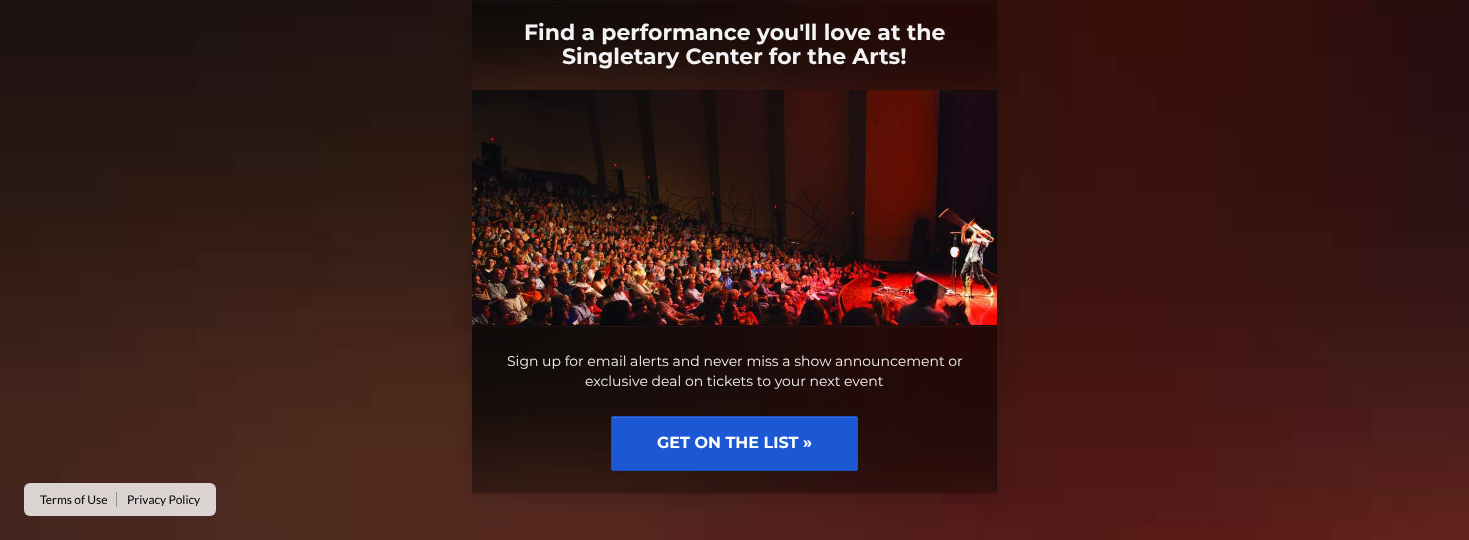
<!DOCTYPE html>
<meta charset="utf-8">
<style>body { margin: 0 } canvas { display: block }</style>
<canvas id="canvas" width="1469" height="540"></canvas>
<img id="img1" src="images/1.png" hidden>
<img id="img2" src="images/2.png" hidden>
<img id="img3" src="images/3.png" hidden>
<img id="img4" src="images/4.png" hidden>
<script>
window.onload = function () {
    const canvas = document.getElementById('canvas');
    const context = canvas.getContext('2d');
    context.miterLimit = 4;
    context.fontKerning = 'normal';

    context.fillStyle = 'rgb(255, 255, 255)';
    context.fillRect(0, 0, 1469, 540);
    context.drawImage(document.getElementById('img1'), 0, 0, 1469, 540);
    context.fillStyle = 'rgba(0, 0, 0, 0.15)';
    context.beginPath();
    context.moveTo(472, 490);
    context.lineTo(472, 493);
    context.lineTo(473, 494);
    context.lineTo(995, 494);
    context.bezierCurveTo(997, 494, 997, 492, 997, 490);
    context.bezierCurveTo(997, 491, 996, 492, 995, 492);
    context.lineTo(474, 492);
    context.bezierCurveTo(473, 492, 472, 491, 472, 490);
    context.closePath();
    context.fill();
    context.fillStyle = 'rgba(0, 0, 0, 0.17)';
    context.filter = 'blur(10px)';
    context.beginPath();
    context.roundRect(472, 5, 525, 492, 2);
    context.fill();
    context.filter = 'none';
    context.drawImage(document.getElementById('img2'), 472, 0, 525, 90);
    context.fillStyle = 'rgba(255, 255, 255, 0.04)';
    context.beginPath();
    context.moveTo(474, 2);
    context.lineTo(995, 2);
    context.bezierCurveTo(996, 2, 996, 2, 996, 3);
    context.bezierCurveTo(996, 2, 996, 1, 995, 1);
    context.lineTo(474, 1);
    context.lineTo(473, 2);
    context.lineTo(473, 3);
    context.closePath();
    context.fill();
    context.strokeStyle = 'rgba(0, 0, 0, 0.06)';
    context.strokeRect(472.5, 0.5, 524, 89);
    context.drawImage(document.getElementById('img3'), 472, 90, 525, 235);
    context.strokeStyle = 'rgba(0, 0, 0, 0.04)';
    context.strokeRect(472.5, 90.5, 524, 234);
    context.drawImage(document.getElementById('img4'), 472, 325, 525, 167);
    context.fillRect(473, 326, 523, 1);
    context.strokeStyle = 'rgba(0, 0, 0, 0.06)';
    context.strokeRect(472.5, 325.5, 524, 166);
    context.fillStyle = 'rgb(29, 88, 212)';
    context.beginPath();
    context.roundRect(611, 416, 247, 55, 2);
    context.fill();
    context.fillStyle = 'rgb(63, 113, 218)';
    context.beginPath();
    context.moveTo(613, 418);
    context.lineTo(857, 418);
    context.lineTo(857, 419);
    context.bezierCurveTo(857, 418, 857, 417, 856, 417);
    context.lineTo(613, 417);
    context.bezierCurveTo(612, 417, 612, 418, 612, 419);
    context.bezierCurveTo(612, 418, 612, 418, 613, 418);
    context.closePath();
    context.fill();
    context.strokeStyle = 'rgba(0, 0, 0, 0.08)';
    context.strokeRect(611.5, 416.5, 246, 54);
    context.fillStyle = 'rgba(255, 255, 255, 0.8)';
    context.beginPath();
    context.roundRect(24, 483, 192, 33, 6);
    context.fill();
    context.fillStyle = 'rgb(147, 147, 147)';
    context.fillRect(116, 492, 1, 15);
    context.font = 'bold 22px Montserrat';
    context.fillStyle = 'rgb(244, 243, 243)';
    context.fillText('Find a performance you\'ll love at the', 524, 40);
    context.fillText('Singletary Center for the Arts!', 562, 64);
    context.font = '14px Montserrat';
    context.fillText('Sign up for email alerts and never miss a show announcement or', 507, 366);
    context.fillText('exclusive deal on tickets to your next event', 585, 386);
    context.font = 'bold 16px Montserrat';
    context.fillStyle = 'rgb(255, 255, 255)';
    context.fillText('GET ON THE LIST »', 657, 448);
    context.font = '12px Lato';
    context.fillStyle = 'rgb(0, 0, 0)';
    context.fillText('Terms of Use', 40, 504);
    context.fillText('Privacy Policy', 127, 504);
};
</script>
